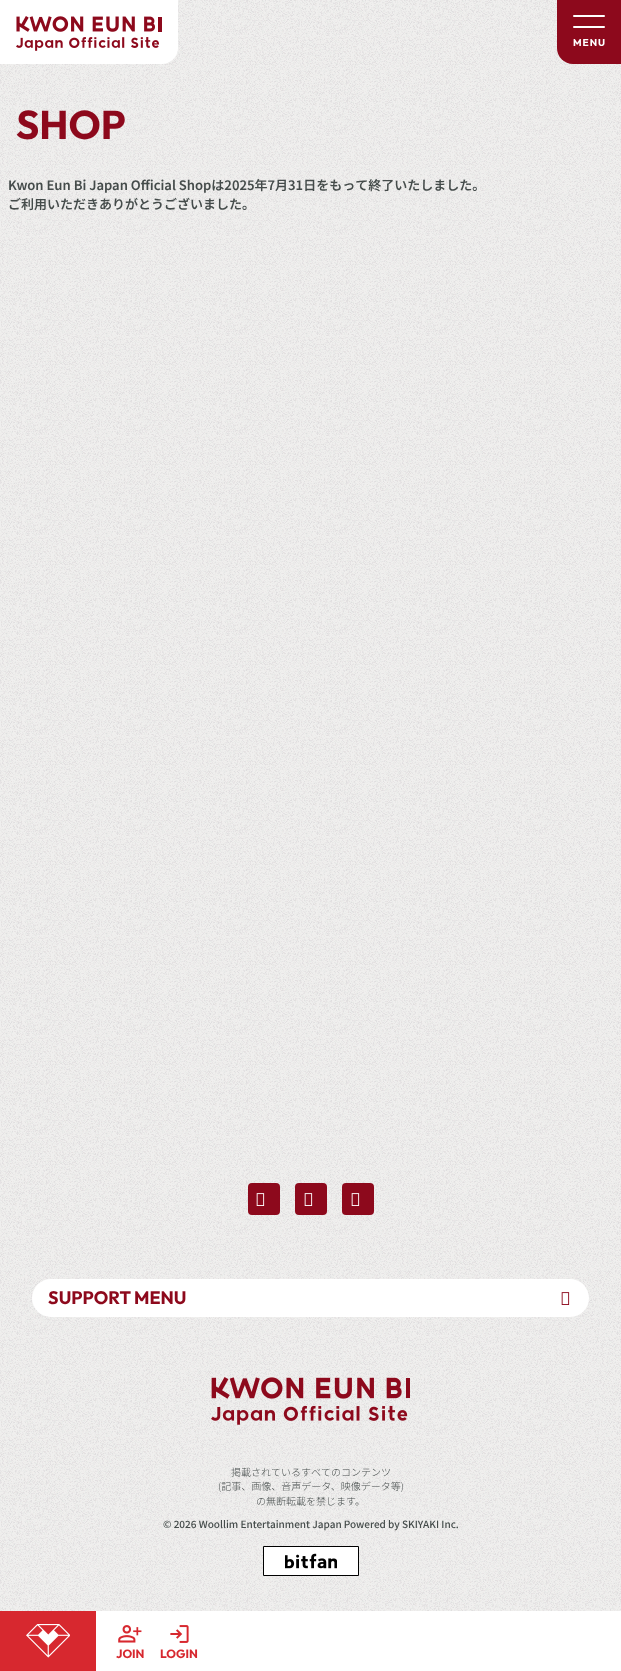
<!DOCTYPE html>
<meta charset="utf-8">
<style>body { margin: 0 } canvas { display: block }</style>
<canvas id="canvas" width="621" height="1671"></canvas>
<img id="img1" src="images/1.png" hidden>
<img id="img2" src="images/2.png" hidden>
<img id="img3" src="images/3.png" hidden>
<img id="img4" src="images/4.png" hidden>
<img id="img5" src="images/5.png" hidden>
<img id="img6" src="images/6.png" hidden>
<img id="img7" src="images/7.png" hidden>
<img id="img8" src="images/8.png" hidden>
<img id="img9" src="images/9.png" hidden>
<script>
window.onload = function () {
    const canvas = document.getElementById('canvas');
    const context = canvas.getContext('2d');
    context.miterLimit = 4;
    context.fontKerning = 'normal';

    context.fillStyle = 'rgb(255, 255, 255)';
    context.fillRect(0, 0, 621, 1671);
    context.drawImage(document.getElementById('img1'), 0, 0, 621, 1611);
    context.beginPath();
    context.roundRect(0, 0, 178, 64, [0, 0, 16, 0]);
    context.fill();
    context.drawImage(document.getElementById('img2'), 16, 16, 146, 35);
    context.fillStyle = 'rgb(141, 9, 28)';
    context.beginPath();
    context.roundRect(557, 0, 64, 64, [0, 0, 0, 16]);
    context.fill();
    context.fillStyle = 'rgb(255, 255, 255)';
    context.beginPath();
    context.roundRect(573, 15, 32, 2, 1);
    context.fill();
    context.beginPath();
    context.roundRect(573, 26, 32, 2, 1);
    context.fill();
    context.fillStyle = 'rgb(141, 9, 28)';
    context.beginPath();
    context.roundRect(248, 1183, 32, 32, 4);
    context.fill();
    context.drawImage(document.getElementById('img3'), 256, 1193, 9, 13);
    context.beginPath();
    context.roundRect(295, 1183, 32, 32, 4);
    context.fill();
    context.drawImage(document.getElementById('img3'), 304, 1193, 9, 13);
    context.beginPath();
    context.roundRect(342, 1183, 32, 32, 4);
    context.fill();
    context.drawImage(document.getElementById('img3'), 351, 1193, 9, 13);
    context.fillStyle = 'rgb(255, 255, 255)';
    context.beginPath();
    context.roundRect(32, 1279, 557, 38, 19);
    context.fill();
    context.drawImage(document.getElementById('img4'), 561, 1292, 9, 13);
    context.drawImage(document.getElementById('img5'), 211, 1377, 199, 48);
    context.beginPath();
    context.rect(263.5, 1546.5, 95, 29);
    context.fill();
    context.strokeStyle = 'rgb(0, 0, 0)';
    context.stroke();
    context.drawImage(document.getElementById('img6'), 285, 1553, 52, 16);
    context.fillStyle = 'rgb(215, 40, 47)';
    context.fillRect(0, 1611, 96, 60);
    context.drawImage(document.getElementById('img7'), 26, 1624, 44, 34);
    context.drawImage(document.getElementById('img8'), 118, 1625, 24, 18);
    context.drawImage(document.getElementById('img9'), 170, 1625, 19, 18);
    context.letterSpacing = '1px';
    context.font = 'bold 10px Outfit';
    context.fillStyle = 'rgb(255, 255, 255)';
    context.fillText('MENU', 573, 46);
    context.letterSpacing = '0px';
    context.font = 'bold 40px Outfit';
    context.fillStyle = 'rgb(141, 9, 28)';
    context.fillText('SHOP', 16, 139);
    context.font = '600 13px Noto Sans JP';
    context.fillStyle = 'rgb(68, 75, 74)';
    context.fillText('Kwon Eun Bi Japan Official Shopは2025年7月31日をもって終了いたしました。', 8, 190);
    context.fillText('ご利用いただきありがとうございました。', 8, 209);
    context.font = 'bold 18px Outfit';
    context.fillStyle = 'rgb(141, 9, 28)';
    context.fillText('SUPPORT MENU', 48, 1304);
    context.font = '300 10px Noto Sans JP';
    context.fillStyle = 'rgb(68, 75, 74)';
    context.fillText('掲載されているすべてのコンテンツ', 231, 1476);
    context.fillText('(記事、画像、音声データ、映像データ等)', 218, 1490);
    context.fillText('の無断転載を禁じます。', 256, 1505);
    context.font = '500 10px Noto Sans JP';
    context.fillText('© 2026 Woollim Entertainment Japan Powered by SKIYAKI Inc.', 163, 1528);
    context.font = 'bold 12px Outfit';
    context.fillStyle = 'rgb(215, 40, 47)';
    context.fillText('JOIN', 116, 1658);
    context.fillText('LOGIN', 160, 1658);
};
</script>
